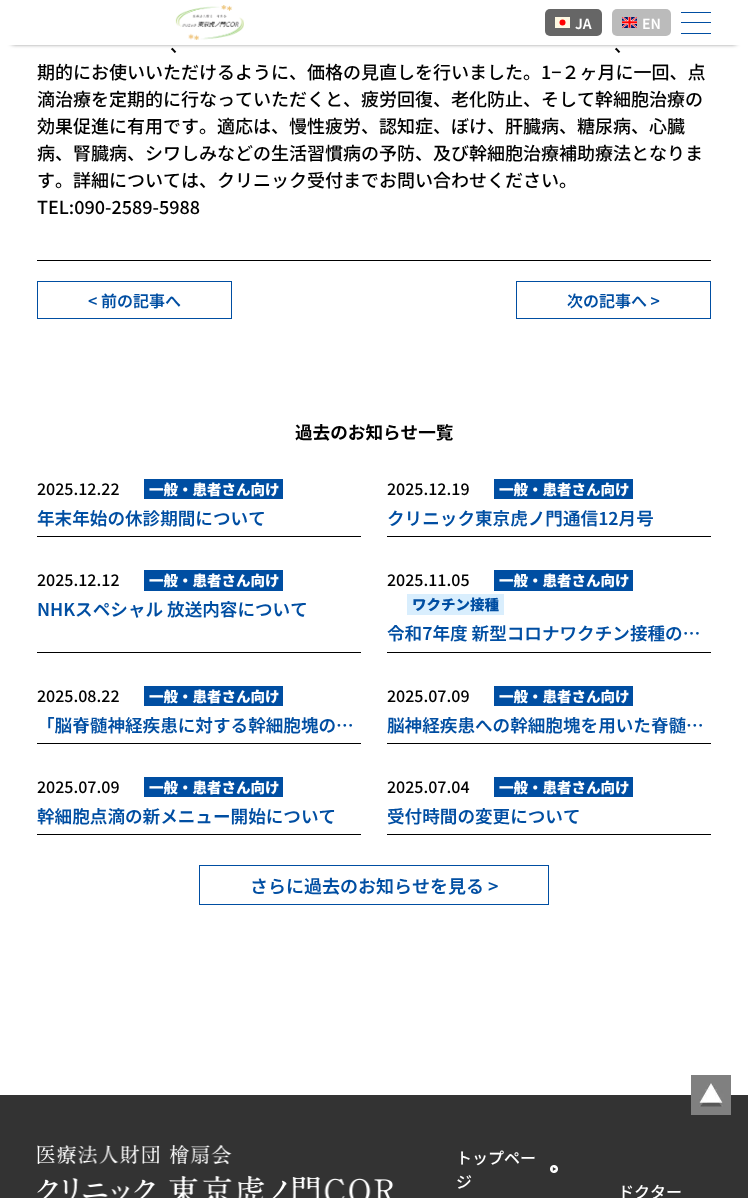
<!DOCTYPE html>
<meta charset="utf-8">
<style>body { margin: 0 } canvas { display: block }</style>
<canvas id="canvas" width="748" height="1198"></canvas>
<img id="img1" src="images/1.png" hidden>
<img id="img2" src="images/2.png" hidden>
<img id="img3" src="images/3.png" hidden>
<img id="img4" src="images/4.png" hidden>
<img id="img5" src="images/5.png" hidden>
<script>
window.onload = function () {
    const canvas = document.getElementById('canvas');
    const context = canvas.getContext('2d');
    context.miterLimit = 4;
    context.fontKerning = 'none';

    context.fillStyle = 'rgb(255, 255, 255)';
    context.fillRect(0, 0, 748, 1198);
    context.fillStyle = 'rgb(0, 0, 0)';
    context.filter = 'blur(2.5px)';
    context.beginPath();
    context.rect(12, 22, 724, 21);
    context.fill();
    context.filter = 'none';
    context.fillStyle = 'rgb(255, 255, 255)';
    context.fillRect(6, 16, 736, 29);
    context.drawImage(document.getElementById('img1'), 175, 5, 69, 35);
    context.fillStyle = 'rgb(102, 102, 102)';
    context.beginPath();
    context.roundRect(545, 9, 57, 27, 5);
    context.fill();
    context.fillStyle = 'rgb(254, 249, 226)';
    context.fillRect(555, 17, 15, 11);
    context.fillStyle = 'rgb(255, 0, 0)';
    context.beginPath();
    context.arc(562.5, 22.5, 3, 0, 2 * Math.PI);
    context.fill();
    context.fillStyle = 'rgb(187, 187, 187)';
    context.beginPath();
    context.roundRect(612, 9, 59, 27, 5);
    context.fill();
    context.drawImage(document.getElementById('img2'), 622, 17, 15, 11);
    context.fillStyle = 'rgb(0, 78, 162)';
    context.fillRect(681, 12, 30, 1);
    context.fillRect(681, 22, 30, 1);
    context.fillRect(681, 33, 30, 1);
    context.fillStyle = 'rgb(0, 0, 0)';
    context.fillRect(37, 260, 674, 1);
    context.strokeStyle = 'rgb(0, 78, 162)';
    context.strokeRect(37.5, 281.5, 194, 37);
    context.strokeRect(516.5, 281.5, 194, 37);
    context.fillRect(37, 536, 324, 1);
    context.fillStyle = 'rgb(0, 78, 162)';
    context.fillRect(144, 479, 139, 20);
    context.fillStyle = 'rgb(0, 0, 0)';
    context.fillRect(387, 536, 324, 1);
    context.fillStyle = 'rgb(0, 78, 162)';
    context.fillRect(494, 479, 139, 20);
    context.fillStyle = 'rgb(0, 0, 0)';
    context.fillRect(37, 652, 324, 1);
    context.fillStyle = 'rgb(0, 78, 162)';
    context.fillRect(144, 570, 139, 21);
    context.fillStyle = 'rgb(0, 0, 0)';
    context.fillRect(387, 652, 324, 1);
    context.fillStyle = 'rgb(0, 78, 162)';
    context.fillRect(494, 570, 139, 21);
    context.fillStyle = 'rgb(217, 238, 253)';
    context.fillRect(407, 594, 97, 21);
    context.fillStyle = 'rgb(0, 0, 0)';
    context.fillRect(37, 743, 324, 1);
    context.fillStyle = 'rgb(0, 78, 162)';
    context.fillRect(144, 686, 139, 20);
    context.fillStyle = 'rgb(0, 0, 0)';
    context.fillRect(387, 743, 324, 1);
    context.fillStyle = 'rgb(0, 78, 162)';
    context.fillRect(494, 686, 139, 20);
    context.fillStyle = 'rgb(0, 0, 0)';
    context.fillRect(37, 834, 324, 1);
    context.fillStyle = 'rgb(0, 78, 162)';
    context.fillRect(144, 777, 139, 20);
    context.fillStyle = 'rgb(0, 0, 0)';
    context.fillRect(387, 834, 324, 1);
    context.fillStyle = 'rgb(0, 78, 162)';
    context.fillRect(494, 777, 139, 20);
    context.strokeRect(199.5, 865.5, 349, 39);
    context.fillStyle = 'rgb(51, 51, 51)';
    context.fillRect(0, 1095, 748, 103);
    context.drawImage(document.getElementById('img3'), 691, 1075, 40, 40);
    context.drawImage(document.getElementById('img4'), 37, 1145, 357, 53);
    context.drawImage(document.getElementById('img5'), 550, 1165, 8, 8);
    context.font = '600 14px Noto Sans JP';
    context.fillStyle = 'rgb(255, 255, 255)';
    context.fillText('JA', 575, 29);
    context.fillText('EN', 642, 29);
    context.font = '500 18px Noto Sans JP';
    context.fillStyle = 'rgb(0, 0, 0)';
    context.fillText('、', 170, 52);
    context.fillText('、', 614, 52);
    context.fillText('期的にお使いいただけるように、価格の見直しを行いました。1−２ヶ月に一回、点', 37, 79);
    context.fillText('滴治療を定期的に行なっていただくと、疲労回復、老化防止、そして幹細胞治療の', 37, 106);
    context.fillText('効果促進に有用です。適応は、慢性疲労、認知症、ぼけ、肝臓病、糖尿病、心臓', 37, 133);
    context.fillText('病、腎臓病、シワしみなどの生活習慣病の予防、及び幹細胞治療補助療法となりま', 37, 160);
    context.fillText('す。詳細については、クリニック受付までお問い合わせください。', 37, 187);
    context.fillText('TEL:090-2589-5988', 37, 214);
    context.font = '600 16px Noto Sans JP';
    context.fillStyle = 'rgb(0, 78, 162)';
    context.fillText('< 前の記事へ', 88, 307);
    context.fillText('次の記事へ >', 567, 307);
    context.font = 'bold 17.6px Noto Sans JP';
    context.fillStyle = 'rgb(0, 0, 0)';
    context.fillText('過去のお知らせ一覧', 295, 439);
    context.font = '500 16px Noto Sans JP';
    context.fillText('2025.12.22', 37, 495);
    context.font = '900 14.5px Noto Sans JP';
    context.fillStyle = 'rgb(255, 255, 255)';
    context.fillText('一般・患者さん向け', 149, 495);
    context.font = '600 17.6px Noto Sans JP';
    context.fillStyle = 'rgb(0, 78, 162)';
    context.fillText('年末年始の休診期間について', 37, 525);
    context.font = '500 16px Noto Sans JP';
    context.fillStyle = 'rgb(0, 0, 0)';
    context.fillText('2025.12.19', 387, 495);
    context.font = '900 14.5px Noto Sans JP';
    context.fillStyle = 'rgb(255, 255, 255)';
    context.fillText('一般・患者さん向け', 499, 495);
    context.font = '600 17.6px Noto Sans JP';
    context.fillStyle = 'rgb(0, 78, 162)';
    context.fillText('クリニック東京虎ノ門通信12月号', 387, 525);
    context.font = '500 16px Noto Sans JP';
    context.fillStyle = 'rgb(0, 0, 0)';
    context.fillText('2025.12.12', 37, 586);
    context.font = '900 14.5px Noto Sans JP';
    context.fillStyle = 'rgb(255, 255, 255)';
    context.fillText('一般・患者さん向け', 149, 586);
    context.font = '600 17.6px Noto Sans JP';
    context.fillStyle = 'rgb(0, 78, 162)';
    context.fillText('NHKスペシャル 放送内容について', 37, 616);
    context.font = '500 16px Noto Sans JP';
    context.fillStyle = 'rgb(0, 0, 0)';
    context.fillText('2025.11.05', 387, 586);
    context.font = '900 14.5px Noto Sans JP';
    context.fillStyle = 'rgb(255, 255, 255)';
    context.fillText('一般・患者さん向け', 499, 586);
    context.fillStyle = 'rgb(0, 78, 162)';
    context.fillText('ワクチン接種', 412, 610);
    context.font = '600 17.6px Noto Sans JP';
    context.fillText('令和7年度 新型コロナワクチン接種の…', 387, 640);
    context.font = '500 16px Noto Sans JP';
    context.fillStyle = 'rgb(0, 0, 0)';
    context.fillText('2025.08.22', 37, 702);
    context.font = '900 14.5px Noto Sans JP';
    context.fillStyle = 'rgb(255, 255, 255)';
    context.fillText('一般・患者さん向け', 149, 702);
    context.font = '600 17.6px Noto Sans JP';
    context.fillStyle = 'rgb(0, 78, 162)';
    context.fillText('「脳脊髄神経疾患に対する幹細胞塊の…', 37, 732);
    context.font = '500 16px Noto Sans JP';
    context.fillStyle = 'rgb(0, 0, 0)';
    context.fillText('2025.07.09', 387, 702);
    context.font = '900 14.5px Noto Sans JP';
    context.fillStyle = 'rgb(255, 255, 255)';
    context.fillText('一般・患者さん向け', 499, 702);
    context.font = '600 17.6px Noto Sans JP';
    context.fillStyle = 'rgb(0, 78, 162)';
    context.fillText('脳神経疾患への幹細胞塊を用いた脊髄…', 387, 732);
    context.font = '500 16px Noto Sans JP';
    context.fillStyle = 'rgb(0, 0, 0)';
    context.fillText('2025.07.09', 37, 793);
    context.font = '900 14.5px Noto Sans JP';
    context.fillStyle = 'rgb(255, 255, 255)';
    context.fillText('一般・患者さん向け', 149, 793);
    context.font = '600 17.6px Noto Sans JP';
    context.fillStyle = 'rgb(0, 78, 162)';
    context.fillText('幹細胞点滴の新メニュー開始について', 37, 823);
    context.font = '500 16px Noto Sans JP';
    context.fillStyle = 'rgb(0, 0, 0)';
    context.fillText('2025.07.04', 387, 793);
    context.font = '900 14.5px Noto Sans JP';
    context.fillStyle = 'rgb(255, 255, 255)';
    context.fillText('一般・患者さん向け', 499, 793);
    context.font = '600 17.6px Noto Sans JP';
    context.fillStyle = 'rgb(0, 78, 162)';
    context.fillText('受付時間の変更について', 387, 823);
    context.font = '600 18px Noto Sans JP';
    context.fillText('さらに過去のお知らせを見る >', 250, 893);
    context.font = '500 16px Noto Sans JP';
    context.fillStyle = 'rgb(255, 255, 255)';
    context.fillText('トップペー', 456, 1164);
    context.fillText('ジ', 456, 1188);
    context.fillText('ドクター', 618, 1198);
};
</script>
